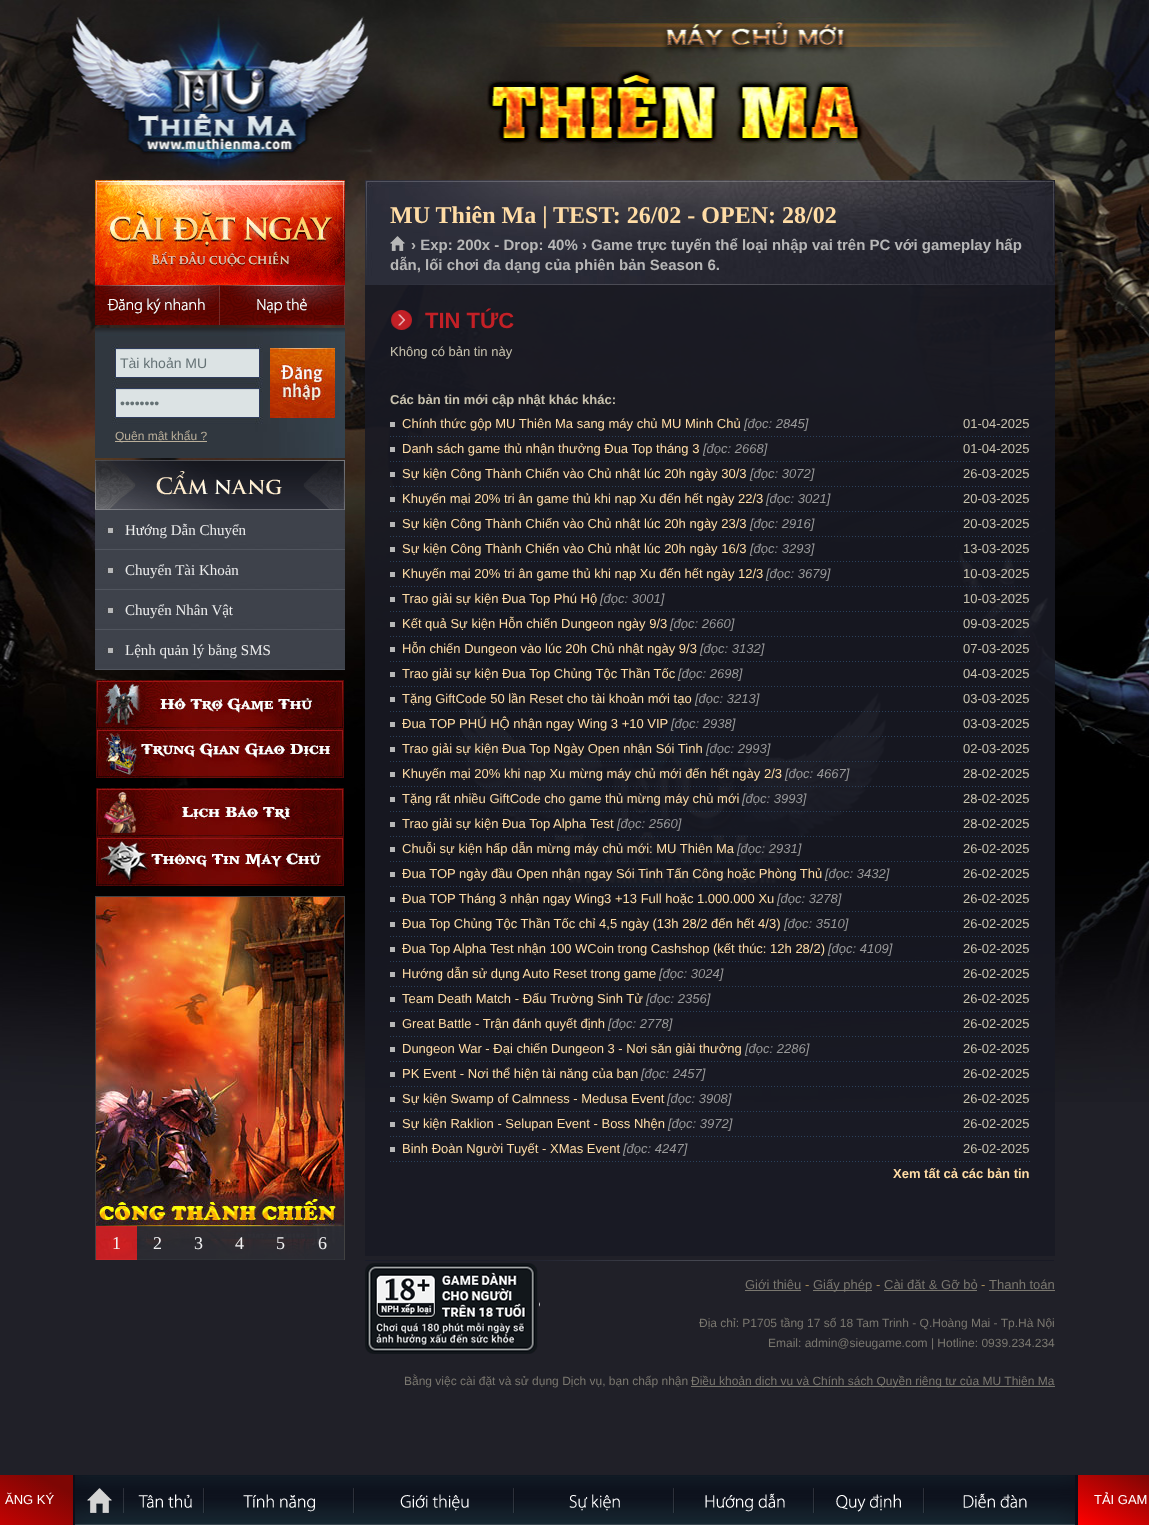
<!DOCTYPE html>
<meta charset="utf-8">
<style>body { margin: 0 } canvas { display: block }</style>
<canvas id="canvas" width="1149" height="1525"></canvas>
<img id="img1" src="images/1.png" hidden>
<img id="img2" src="images/2.png" hidden>
<img id="img3" src="images/3.png" hidden>
<img id="img4" src="images/4.png" hidden>
<img id="img5" src="images/5.png" hidden>
<img id="img6" src="images/6.png" hidden>
<img id="img7" src="images/7.png" hidden>
<img id="img8" src="images/8.png" hidden>
<img id="img9" src="images/9.png" hidden>
<img id="img10" src="images/10.png" hidden>
<img id="img11" src="images/11.png" hidden>
<img id="img12" src="images/12.png" hidden>
<img id="img13" src="images/13.png" hidden>
<img id="img14" src="images/14.png" hidden>
<img id="img15" src="images/15.png" hidden>
<img id="img16" src="images/16.png" hidden>
<img id="img17" src="images/17.png" hidden>
<img id="img18" src="images/18.png" hidden>
<img id="img19" src="images/19.png" hidden>
<img id="img20" src="images/20.png" hidden>
<img id="img21" src="images/21.png" hidden>
<img id="img22" src="images/22.png" hidden>
<img id="img23" src="images/23.png" hidden>
<img id="img24" src="images/24.png" hidden>
<img id="img25" src="images/25.png" hidden>
<img id="img26" src="images/26.png" hidden>
<img id="img27" src="images/27.png" hidden>
<img id="img28" src="images/28.png" hidden>
<img id="img29" src="images/29.png" hidden>
<img id="img30" src="images/30.png" hidden>
<img id="img31" src="images/31.png" hidden>
<img id="img32" src="images/32.png" hidden>
<img id="img33" src="images/33.png" hidden>
<img id="img34" src="images/34.png" hidden>
<img id="img35" src="images/35.png" hidden>
<img id="img36" src="images/36.png" hidden>
<img id="img37" src="images/37.png" hidden>
<img id="img38" src="images/38.png" hidden>
<img id="img39" src="images/39.png" hidden>
<img id="img40" src="images/40.png" hidden>
<img id="img41" src="images/41.png" hidden>
<img id="img42" src="images/42.png" hidden>
<img id="img43" src="images/43.png" hidden>
<img id="img44" src="images/44.png" hidden>
<img id="img45" src="images/45.png" hidden>
<img id="img46" src="images/46.png" hidden>
<img id="img47" src="images/47.png" hidden>
<img id="img48" src="images/48.png" hidden>
<img id="img49" src="images/49.png" hidden>
<img id="img50" src="images/50.png" hidden>
<img id="img51" src="images/51.png" hidden>
<img id="img52" src="images/52.png" hidden>
<img id="img53" src="images/53.png" hidden>
<script>
window.onload = function () {
    const canvas = document.getElementById('canvas');
    const context = canvas.getContext('2d');
    context.miterLimit = 4;
    context.fontKerning = 'normal';
    let gradient;

    context.fillStyle = 'rgb(32, 32, 40)';
    context.fillRect(0, 0, 1149, 1525);
    context.drawImage(document.getElementById('img1'), 0, 0, 1149, 1102);
    context.drawImage(document.getElementById('img2'), 95, 180, 250, 105);
    context.drawImage(document.getElementById('img3'), 95, 285, 125, 40);
    context.drawImage(document.getElementById('img4'), 220, 285, 125, 40);
    context.drawImage(document.getElementById('img5'), 95, 328, 250, 130);
    context.fillStyle = 'rgb(220, 227, 228)';
    context.fillRect(116, 350, 143, 27);
    context.fillStyle = 'rgb(204, 210, 211)';
    context.fillRect(116, 349, 143, 1);
    context.strokeStyle = 'rgb(47, 60, 94)';
    context.strokeRect(115.5, 348.5, 144, 29);
    context.fillStyle = 'rgb(220, 227, 228)';
    context.fillRect(116, 390, 143, 27);
    context.fillStyle = 'rgb(204, 210, 211)';
    context.fillRect(116, 389, 143, 1);
    context.strokeRect(115.5, 388.5, 144, 29);
    context.drawImage(document.getElementById('img6'), 270, 348, 65, 70);
    context.fillStyle = 'rgb(186, 175, 154)';
    context.fillRect(115, 441, 92, 1);
    context.drawImage(document.getElementById('img7'), 95, 460, 250, 50);
    context.drawImage(document.getElementById('img8'), 95, 510, 250, 40);
    context.drawImage(document.getElementById('img8'), 95, 550, 250, 40);
    context.drawImage(document.getElementById('img8'), 95, 590, 250, 40);
    context.drawImage(document.getElementById('img8'), 95, 630, 250, 40);
    context.drawImage(document.getElementById('img9'), 96, 680, 248, 49);
    context.drawImage(document.getElementById('img10'), 96, 729, 248, 49);
    context.drawImage(document.getElementById('img11'), 96, 788, 248, 49);
    context.drawImage(document.getElementById('img12'), 96, 837, 248, 49);
    context.strokeStyle = 'rgb(66, 66, 66)';
    context.strokeRect(95.5, 896.5, 249, 363);
    context.drawImage(document.getElementById('img13'), 96, 897, 248, 362);
    context.fillStyle = 'rgba(237, 32, 36, 0.8)';
    context.fillRect(96, 1226, 41, 34);
    context.fillStyle = 'rgba(42, 46, 54, 0.8)';
    context.fillRect(137, 1226, 41, 34);
    context.fillRect(178, 1226, 41, 34);
    context.fillRect(219, 1226, 41, 34);
    context.fillRect(260, 1226, 41, 34);
    context.fillRect(301, 1226, 43, 34);
    context.fillStyle = 'rgba(24, 26, 35, 0.9)';
    context.fillRect(365, 285, 690, 971);
    context.drawImage(document.getElementById('img14'), 365, 180, 690, 105);
    context.drawImage(document.getElementById('img15'), 390, 236, 15, 15);
    context.drawImage(document.getElementById('img16'), 391, 310, 21, 20);
    context.fillStyle = 'rgb(183, 183, 183)';
    context.fillRect(390, 422, 5, 5);
    context.drawImage(document.getElementById('img17'), 390, 436, 640, 1);
    context.fillRect(390, 447, 5, 5);
    context.drawImage(document.getElementById('img18'), 390, 461, 640, 1);
    context.fillRect(390, 472, 5, 5);
    context.drawImage(document.getElementById('img19'), 390, 486, 640, 1);
    context.fillRect(390, 497, 5, 5);
    context.drawImage(document.getElementById('img20'), 390, 511, 640, 1);
    context.fillRect(390, 522, 5, 5);
    context.drawImage(document.getElementById('img21'), 390, 536, 640, 1);
    context.fillRect(390, 547, 5, 5);
    context.drawImage(document.getElementById('img22'), 390, 561, 640, 1);
    context.fillRect(390, 572, 5, 5);
    context.drawImage(document.getElementById('img23'), 390, 586, 640, 1);
    context.fillRect(390, 597, 5, 5);
    context.drawImage(document.getElementById('img24'), 390, 611, 640, 1);
    context.fillRect(390, 622, 5, 5);
    context.drawImage(document.getElementById('img25'), 390, 636, 640, 1);
    context.fillRect(390, 647, 5, 5);
    context.drawImage(document.getElementById('img26'), 390, 661, 640, 1);
    context.fillRect(390, 672, 5, 5);
    context.drawImage(document.getElementById('img27'), 390, 686, 640, 1);
    context.fillRect(390, 697, 5, 5);
    context.drawImage(document.getElementById('img28'), 390, 711, 640, 1);
    context.fillRect(390, 722, 5, 5);
    context.drawImage(document.getElementById('img29'), 390, 736, 640, 1);
    context.fillRect(390, 747, 5, 5);
    context.drawImage(document.getElementById('img30'), 390, 761, 640, 1);
    context.fillRect(390, 772, 5, 5);
    context.drawImage(document.getElementById('img31'), 390, 786, 640, 1);
    context.fillRect(390, 797, 5, 5);
    context.drawImage(document.getElementById('img32'), 390, 811, 640, 1);
    context.fillRect(390, 822, 5, 5);
    context.drawImage(document.getElementById('img33'), 390, 836, 640, 1);
    context.fillRect(390, 847, 5, 5);
    context.drawImage(document.getElementById('img34'), 390, 861, 640, 1);
    context.fillRect(390, 872, 5, 5);
    context.drawImage(document.getElementById('img35'), 390, 886, 640, 1);
    context.fillRect(390, 897, 5, 5);
    context.drawImage(document.getElementById('img36'), 390, 911, 640, 1);
    context.fillRect(390, 922, 5, 5);
    context.drawImage(document.getElementById('img37'), 390, 936, 640, 1);
    context.fillRect(390, 947, 5, 5);
    context.drawImage(document.getElementById('img38'), 390, 961, 640, 1);
    context.fillRect(390, 972, 5, 5);
    context.drawImage(document.getElementById('img39'), 390, 986, 640, 1);
    context.fillRect(390, 997, 5, 5);
    context.drawImage(document.getElementById('img40'), 390, 1011, 640, 1);
    context.fillRect(390, 1022, 5, 5);
    context.drawImage(document.getElementById('img41'), 390, 1036, 640, 1);
    context.fillRect(390, 1047, 5, 5);
    context.drawImage(document.getElementById('img42'), 390, 1061, 640, 1);
    context.fillRect(390, 1072, 5, 5);
    context.drawImage(document.getElementById('img43'), 390, 1086, 640, 1);
    context.fillRect(390, 1097, 5, 5);
    context.drawImage(document.getElementById('img44'), 390, 1111, 640, 1);
    context.fillRect(390, 1122, 5, 5);
    context.drawImage(document.getElementById('img44'), 390, 1136, 640, 1);
    context.fillRect(390, 1147, 5, 5);
    context.drawImage(document.getElementById('img44'), 390, 1161, 640, 1);
    context.drawImage(document.getElementById('img45'), 365, 1260, 689, 94);
    context.fillStyle = 'rgb(122, 119, 111)';
    context.fillRect(745, 1290, 56, 1);
    context.fillRect(813, 1290, 59, 1);
    context.fillRect(884, 1290, 93, 1);
    context.fillRect(989, 1290, 66, 1);
    context.fillRect(691, 1386, 364, 1);
    context.fillStyle = 'rgb(12, 14, 25)';
    context.fillRect(73, 1475, 1005, 50);
    gradient = context.createLinearGradient(-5.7, 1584, 57, 1466);
    gradient.addColorStop(0.01, 'rgb(255, 0, 0)');
    gradient.addColorStop(0.87, 'rgb(126, 6, 4)');
    context.fillStyle = gradient;
    context.fillRect(0, 1475, 73, 50);
    context.drawImage(document.getElementById('img46'), 75, 1475, 50, 50);
    context.drawImage(document.getElementById('img47'), 125, 1475, 80, 50);
    context.drawImage(document.getElementById('img48'), 205, 1475, 150, 50);
    context.drawImage(document.getElementById('img49'), 355, 1475, 160, 50);
    context.drawImage(document.getElementById('img50'), 515, 1475, 160, 50);
    context.drawImage(document.getElementById('img51'), 675, 1475, 140, 50);
    context.drawImage(document.getElementById('img52'), 815, 1475, 110, 50);
    context.drawImage(document.getElementById('img53'), 925, 1475, 150, 50);
    gradient = context.createLinearGradient(1105, 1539, 1146, 1461);
    gradient.addColorStop(0.01, 'rgb(255, 0, 0)');
    gradient.addColorStop(0.87, 'rgb(126, 6, 4)');
    context.fillStyle = gradient;
    context.fillRect(1078, 1475, 71, 50);
    context.font = '14px Liberation Sans';
    context.fillStyle = 'rgb(101, 114, 117)';
    context.fillText('Tài khoản MU', 120, 368);
    context.fillText('••••••••', 120, 408);
    context.font = '12px Liberation Sans';
    context.fillStyle = 'rgb(186, 175, 154)';
    context.fillText('Quên mật khẩu ?', 115, 440);
    context.font = '15px Liberation Serif';
    context.fillStyle = 'rgb(236, 236, 236)';
    context.fillText('Hướng Dẫn Chuyển', 125, 535);
    context.fillText('Chuyển Tài Khoản', 125, 575);
    context.fillText('Chuyển Nhân Vật', 125, 615);
    context.fillText('Lệnh quản lý bằng SMS', 125, 655);
    context.font = '18px Liberation Serif';
    context.fillStyle = 'rgb(241, 241, 242)';
    context.fillText('1', 112, 1249);
    context.fillText('2', 153, 1249);
    context.fillText('3', 194, 1249);
    context.fillText('4', 235, 1249);
    context.fillText('5', 276, 1249);
    context.fillText('6', 318, 1249);
    context.font = 'bold 24px Liberation Serif';
    context.fillStyle = 'rgb(255, 220, 165)';
    context.fillText('MU Thiên Ma | TEST: 26/02 - OPEN: 28/02', 390, 223);
    context.font = 'bold 15px Liberation Sans';
    context.fillStyle = 'rgb(183, 183, 183)';
    context.fillText('› Exp: 200x - Drop: 40% › Game trực tuyến thể loại nhập vai trên PC với gameplay hấp', 411, 250);
    context.fillText('dẫn, lối chơi đa dạng của phiên bản Season 6.', 390, 270);
    context.font = 'bold 22px Liberation Sans';
    context.fillStyle = 'rgb(195, 32, 38)';
    context.fillText('TIN TỨC', 425, 328);
    context.font = '13px Liberation Sans';
    context.fillStyle = 'rgb(200, 194, 174)';
    context.fillText('Không có bản tin này', 390, 356);
    context.font = 'bold 13px Liberation Sans';
    context.fillText('Các bản tin mới cập nhật khác khác:', 390, 404);
    context.font = '13px Liberation Sans';
    context.fillStyle = 'rgb(255, 220, 165)';
    context.fillText('Chính thức gộp MU Thiên Ma sang máy chủ MU Minh Chủ', 402, 428);
    context.font = 'italic 13px Liberation Sans';
    context.fillStyle = 'rgb(153, 153, 153)';
    context.fillText('[đọc: 2845]', 744, 428);
    context.font = '13px Liberation Sans';
    context.fillStyle = 'rgb(200, 194, 174)';
    context.fillText('01-04-2025', 963, 428);
    context.fillStyle = 'rgb(255, 220, 165)';
    context.fillText('Danh sách game thủ nhận thưởng Đua Top tháng 3', 402, 453);
    context.font = 'italic 13px Liberation Sans';
    context.fillStyle = 'rgb(153, 153, 153)';
    context.fillText('[đọc: 2668]', 703, 453);
    context.font = '13px Liberation Sans';
    context.fillStyle = 'rgb(200, 194, 174)';
    context.fillText('01-04-2025', 963, 453);
    context.fillStyle = 'rgb(255, 220, 165)';
    context.fillText('Sự kiện Công Thành Chiến vào Chủ nhật lúc 20h ngày 30/3', 402, 478);
    context.font = 'italic 13px Liberation Sans';
    context.fillStyle = 'rgb(153, 153, 153)';
    context.fillText('[đọc: 3072]', 750, 478);
    context.font = '13px Liberation Sans';
    context.fillStyle = 'rgb(200, 194, 174)';
    context.fillText('26-03-2025', 963, 478);
    context.fillStyle = 'rgb(255, 220, 165)';
    context.fillText('Khuyến mại 20% tri ân game thủ khi nạp Xu đến hết ngày 22/3', 402, 503);
    context.font = 'italic 13px Liberation Sans';
    context.fillStyle = 'rgb(153, 153, 153)';
    context.fillText('[đọc: 3021]', 766, 503);
    context.font = '13px Liberation Sans';
    context.fillStyle = 'rgb(200, 194, 174)';
    context.fillText('20-03-2025', 963, 503);
    context.fillStyle = 'rgb(255, 220, 165)';
    context.fillText('Sự kiện Công Thành Chiến vào Chủ nhật lúc 20h ngày 23/3', 402, 528);
    context.font = 'italic 13px Liberation Sans';
    context.fillStyle = 'rgb(153, 153, 153)';
    context.fillText('[đọc: 2916]', 750, 528);
    context.font = '13px Liberation Sans';
    context.fillStyle = 'rgb(200, 194, 174)';
    context.fillText('20-03-2025', 963, 528);
    context.fillStyle = 'rgb(255, 220, 165)';
    context.fillText('Sự kiện Công Thành Chiến vào Chủ nhật lúc 20h ngày 16/3', 402, 553);
    context.font = 'italic 13px Liberation Sans';
    context.fillStyle = 'rgb(153, 153, 153)';
    context.fillText('[đọc: 3293]', 750, 553);
    context.font = '13px Liberation Sans';
    context.fillStyle = 'rgb(200, 194, 174)';
    context.fillText('13-03-2025', 963, 553);
    context.fillStyle = 'rgb(255, 220, 165)';
    context.fillText('Khuyến mại 20% tri ân game thủ khi nạp Xu đến hết ngày 12/3', 402, 578);
    context.font = 'italic 13px Liberation Sans';
    context.fillStyle = 'rgb(153, 153, 153)';
    context.fillText('[đọc: 3679]', 766, 578);
    context.font = '13px Liberation Sans';
    context.fillStyle = 'rgb(200, 194, 174)';
    context.fillText('10-03-2025', 963, 578);
    context.fillStyle = 'rgb(255, 220, 165)';
    context.fillText('Trao giải sự kiện Đua Top Phú Hộ', 402, 603);
    context.font = 'italic 13px Liberation Sans';
    context.fillStyle = 'rgb(153, 153, 153)';
    context.fillText('[đọc: 3001]', 600, 603);
    context.font = '13px Liberation Sans';
    context.fillStyle = 'rgb(200, 194, 174)';
    context.fillText('10-03-2025', 963, 603);
    context.fillStyle = 'rgb(255, 220, 165)';
    context.fillText('Kết quả Sự kiện Hỗn chiến Dungeon ngày 9/3', 402, 628);
    context.font = 'italic 13px Liberation Sans';
    context.fillStyle = 'rgb(153, 153, 153)';
    context.fillText('[đọc: 2660]', 670, 628);
    context.font = '13px Liberation Sans';
    context.fillStyle = 'rgb(200, 194, 174)';
    context.fillText('09-03-2025', 963, 628);
    context.fillStyle = 'rgb(255, 220, 165)';
    context.fillText('Hỗn chiến Dungeon vào lúc 20h Chủ nhật ngày 9/3', 402, 653);
    context.font = 'italic 13px Liberation Sans';
    context.fillStyle = 'rgb(153, 153, 153)';
    context.fillText('[đọc: 3132]', 700, 653);
    context.font = '13px Liberation Sans';
    context.fillStyle = 'rgb(200, 194, 174)';
    context.fillText('07-03-2025', 963, 653);
    context.fillStyle = 'rgb(255, 220, 165)';
    context.fillText('Trao giải sự kiện Đua Top Chủng Tộc Thần Tốc', 402, 678);
    context.font = 'italic 13px Liberation Sans';
    context.fillStyle = 'rgb(153, 153, 153)';
    context.fillText('[đọc: 2698]', 678, 678);
    context.font = '13px Liberation Sans';
    context.fillStyle = 'rgb(200, 194, 174)';
    context.fillText('04-03-2025', 963, 678);
    context.fillStyle = 'rgb(255, 220, 165)';
    context.fillText('Tặng GiftCode 50 lần Reset cho tài khoản mới tạo', 402, 703);
    context.font = 'italic 13px Liberation Sans';
    context.fillStyle = 'rgb(153, 153, 153)';
    context.fillText('[đọc: 3213]', 695, 703);
    context.font = '13px Liberation Sans';
    context.fillStyle = 'rgb(200, 194, 174)';
    context.fillText('03-03-2025', 963, 703);
    context.fillStyle = 'rgb(255, 220, 165)';
    context.fillText('Đua TOP PHÚ HỘ nhận ngay Wing 3 +10 VIP', 402, 728);
    context.font = 'italic 13px Liberation Sans';
    context.fillStyle = 'rgb(153, 153, 153)';
    context.fillText('[đọc: 2938]', 671, 728);
    context.font = '13px Liberation Sans';
    context.fillStyle = 'rgb(200, 194, 174)';
    context.fillText('03-03-2025', 963, 728);
    context.fillStyle = 'rgb(255, 220, 165)';
    context.fillText('Trao giải sự kiện Đua Top Ngày Open nhận Sói Tinh', 402, 753);
    context.font = 'italic 13px Liberation Sans';
    context.fillStyle = 'rgb(153, 153, 153)';
    context.fillText('[đọc: 2993]', 706, 753);
    context.font = '13px Liberation Sans';
    context.fillStyle = 'rgb(200, 194, 174)';
    context.fillText('02-03-2025', 963, 753);
    context.fillStyle = 'rgb(255, 220, 165)';
    context.fillText('Khuyến mại 20% khi nạp Xu mừng máy chủ mới đến hết ngày 2/3', 402, 778);
    context.font = 'italic 13px Liberation Sans';
    context.fillStyle = 'rgb(153, 153, 153)';
    context.fillText('[đọc: 4667]', 785, 778);
    context.font = '13px Liberation Sans';
    context.fillStyle = 'rgb(200, 194, 174)';
    context.fillText('28-02-2025', 963, 778);
    context.fillStyle = 'rgb(255, 220, 165)';
    context.fillText('Tặng rất nhiều GiftCode cho game thủ mừng máy chủ mới', 402, 803);
    context.font = 'italic 13px Liberation Sans';
    context.fillStyle = 'rgb(153, 153, 153)';
    context.fillText('[đọc: 3993]', 742, 803);
    context.font = '13px Liberation Sans';
    context.fillStyle = 'rgb(200, 194, 174)';
    context.fillText('28-02-2025', 963, 803);
    context.fillStyle = 'rgb(255, 220, 165)';
    context.fillText('Trao giải sự kiện Đua Top Alpha Test', 402, 828);
    context.font = 'italic 13px Liberation Sans';
    context.fillStyle = 'rgb(153, 153, 153)';
    context.fillText('[đọc: 2560]', 617, 828);
    context.font = '13px Liberation Sans';
    context.fillStyle = 'rgb(200, 194, 174)';
    context.fillText('28-02-2025', 963, 828);
    context.fillStyle = 'rgb(255, 220, 165)';
    context.fillText('Chuỗi sự kiện hấp dẫn mừng máy chủ mới: MU Thiên Ma', 402, 853);
    context.font = 'italic 13px Liberation Sans';
    context.fillStyle = 'rgb(153, 153, 153)';
    context.fillText('[đọc: 2931]', 737, 853);
    context.font = '13px Liberation Sans';
    context.fillStyle = 'rgb(200, 194, 174)';
    context.fillText('26-02-2025', 963, 853);
    context.fillStyle = 'rgb(255, 220, 165)';
    context.fillText('Đua TOP ngày đầu Open nhận ngay Sói Tinh Tấn Công hoặc Phòng Thủ', 402, 878);
    context.font = 'italic 13px Liberation Sans';
    context.fillStyle = 'rgb(153, 153, 153)';
    context.fillText('[đọc: 3432]', 825, 878);
    context.font = '13px Liberation Sans';
    context.fillStyle = 'rgb(200, 194, 174)';
    context.fillText('26-02-2025', 963, 878);
    context.fillStyle = 'rgb(255, 220, 165)';
    context.fillText('Đua TOP Tháng 3 nhận ngay Wing3 +13 Full hoặc 1.000.000 Xu', 402, 903);
    context.font = 'italic 13px Liberation Sans';
    context.fillStyle = 'rgb(153, 153, 153)';
    context.fillText('[đọc: 3278]', 777, 903);
    context.font = '13px Liberation Sans';
    context.fillStyle = 'rgb(200, 194, 174)';
    context.fillText('26-02-2025', 963, 903);
    context.fillStyle = 'rgb(255, 220, 165)';
    context.fillText('Đua Top Chủng Tộc Thần Tốc chỉ 4,5 ngày (13h 28/2 đến hết 4/3)', 402, 928);
    context.font = 'italic 13px Liberation Sans';
    context.fillStyle = 'rgb(153, 153, 153)';
    context.fillText('[đọc: 3510]', 784, 928);
    context.font = '13px Liberation Sans';
    context.fillStyle = 'rgb(200, 194, 174)';
    context.fillText('26-02-2025', 963, 928);
    context.fillStyle = 'rgb(255, 220, 165)';
    context.fillText('Đua Top Alpha Test nhận 100 WCoin trong Cashshop (kết thúc: 12h 28/2)', 402, 953);
    context.font = 'italic 13px Liberation Sans';
    context.fillStyle = 'rgb(153, 153, 153)';
    context.fillText('[đọc: 4109]', 828, 953);
    context.font = '13px Liberation Sans';
    context.fillStyle = 'rgb(200, 194, 174)';
    context.fillText('26-02-2025', 963, 953);
    context.fillStyle = 'rgb(255, 220, 165)';
    context.fillText('Hướng dẫn sử dụng Auto Reset trong game', 402, 978);
    context.font = 'italic 13px Liberation Sans';
    context.fillStyle = 'rgb(153, 153, 153)';
    context.fillText('[đọc: 3024]', 659, 978);
    context.font = '13px Liberation Sans';
    context.fillStyle = 'rgb(200, 194, 174)';
    context.fillText('26-02-2025', 963, 978);
    context.fillStyle = 'rgb(255, 220, 165)';
    context.fillText('Team Death Match - Đấu Trường Sinh Tử', 402, 1003);
    context.font = 'italic 13px Liberation Sans';
    context.fillStyle = 'rgb(153, 153, 153)';
    context.fillText('[đọc: 2356]', 646, 1003);
    context.font = '13px Liberation Sans';
    context.fillStyle = 'rgb(200, 194, 174)';
    context.fillText('26-02-2025', 963, 1003);
    context.fillStyle = 'rgb(255, 220, 165)';
    context.fillText('Great Battle - Trận đánh quyết định', 402, 1028);
    context.font = 'italic 13px Liberation Sans';
    context.fillStyle = 'rgb(153, 153, 153)';
    context.fillText('[đọc: 2778]', 608, 1028);
    context.font = '13px Liberation Sans';
    context.fillStyle = 'rgb(200, 194, 174)';
    context.fillText('26-02-2025', 963, 1028);
    context.fillStyle = 'rgb(255, 220, 165)';
    context.fillText('Dungeon War - Đại chiến Dungeon 3 - Nơi săn giải thưởng', 402, 1053);
    context.font = 'italic 13px Liberation Sans';
    context.fillStyle = 'rgb(153, 153, 153)';
    context.fillText('[đọc: 2286]', 745, 1053);
    context.font = '13px Liberation Sans';
    context.fillStyle = 'rgb(200, 194, 174)';
    context.fillText('26-02-2025', 963, 1053);
    context.fillStyle = 'rgb(255, 220, 165)';
    context.fillText('PK Event - Nơi thể hiện tài năng của bạn', 402, 1078);
    context.font = 'italic 13px Liberation Sans';
    context.fillStyle = 'rgb(153, 153, 153)';
    context.fillText('[đọc: 2457]', 641, 1078);
    context.font = '13px Liberation Sans';
    context.fillStyle = 'rgb(200, 194, 174)';
    context.fillText('26-02-2025', 963, 1078);
    context.fillStyle = 'rgb(255, 220, 165)';
    context.fillText('Sự kiện Swamp of Calmness - Medusa Event', 402, 1103);
    context.font = 'italic 13px Liberation Sans';
    context.fillStyle = 'rgb(153, 153, 153)';
    context.fillText('[đọc: 3908]', 667, 1103);
    context.font = '13px Liberation Sans';
    context.fillStyle = 'rgb(200, 194, 174)';
    context.fillText('26-02-2025', 963, 1103);
    context.fillStyle = 'rgb(255, 220, 165)';
    context.fillText('Sự kiện Raklion - Selupan Event - Boss Nhện', 402, 1128);
    context.font = 'italic 13px Liberation Sans';
    context.fillStyle = 'rgb(153, 153, 153)';
    context.fillText('[đọc: 3972]', 668, 1128);
    context.font = '13px Liberation Sans';
    context.fillStyle = 'rgb(200, 194, 174)';
    context.fillText('26-02-2025', 963, 1128);
    context.fillStyle = 'rgb(255, 220, 165)';
    context.fillText('Binh Đoàn Người Tuyết - XMas Event', 402, 1153);
    context.font = 'italic 13px Liberation Sans';
    context.fillStyle = 'rgb(153, 153, 153)';
    context.fillText('[đọc: 4247]', 623, 1153);
    context.font = '13px Liberation Sans';
    context.fillStyle = 'rgb(200, 194, 174)';
    context.fillText('26-02-2025', 963, 1153);
    context.font = 'bold 13px Liberation Sans';
    context.fillStyle = 'rgb(255, 220, 165)';
    context.fillText('Xem tất cả các bản tin', 893, 1178);
    context.font = '13px Liberation Sans';
    context.fillStyle = 'rgb(122, 119, 111)';
    context.fillText('Giới thiệu', 745, 1289);
    context.fillStyle = 'rgb(166, 140, 90)';
    context.fillText('-', 805, 1289);
    context.fillStyle = 'rgb(122, 119, 111)';
    context.fillText('Giấy phép', 813, 1289);
    context.fillStyle = 'rgb(166, 140, 90)';
    context.fillText('-', 876, 1289);
    context.fillStyle = 'rgb(122, 119, 111)';
    context.fillText('Cài đặt & Gỡ bỏ', 884, 1289);
    context.fillStyle = 'rgb(166, 140, 90)';
    context.fillText('-', 981, 1289);
    context.fillStyle = 'rgb(122, 119, 111)';
    context.fillText('Thanh toán', 989, 1289);
    context.font = '12px Liberation Sans';
    context.fillText('Địa chỉ: P1705 tầng 17 số 18 Tam Trinh - Q.Hoàng Mai - Tp.Hà Nội', 699, 1327);
    context.fillText('Email: admin@sieugame.com | Hotline: 0939.234.234', 768, 1347);
    context.fillText('Bằng việc cài đặt và sử dụng Dịch vụ, bạn chấp nhận', 404, 1385);
    context.fillText('Điều khoản dịch vụ và Chính sách Quyền riêng tư của MU Thiên Ma', 691, 1385);
    context.font = '13px Liberation Sans';
    context.fillStyle = 'rgb(255, 255, 255)';
    context.fillText('ĂNG KÝ', 5, 1504);
    context.fillText('TẢI GAM', 1094, 1504);
};
</script>
